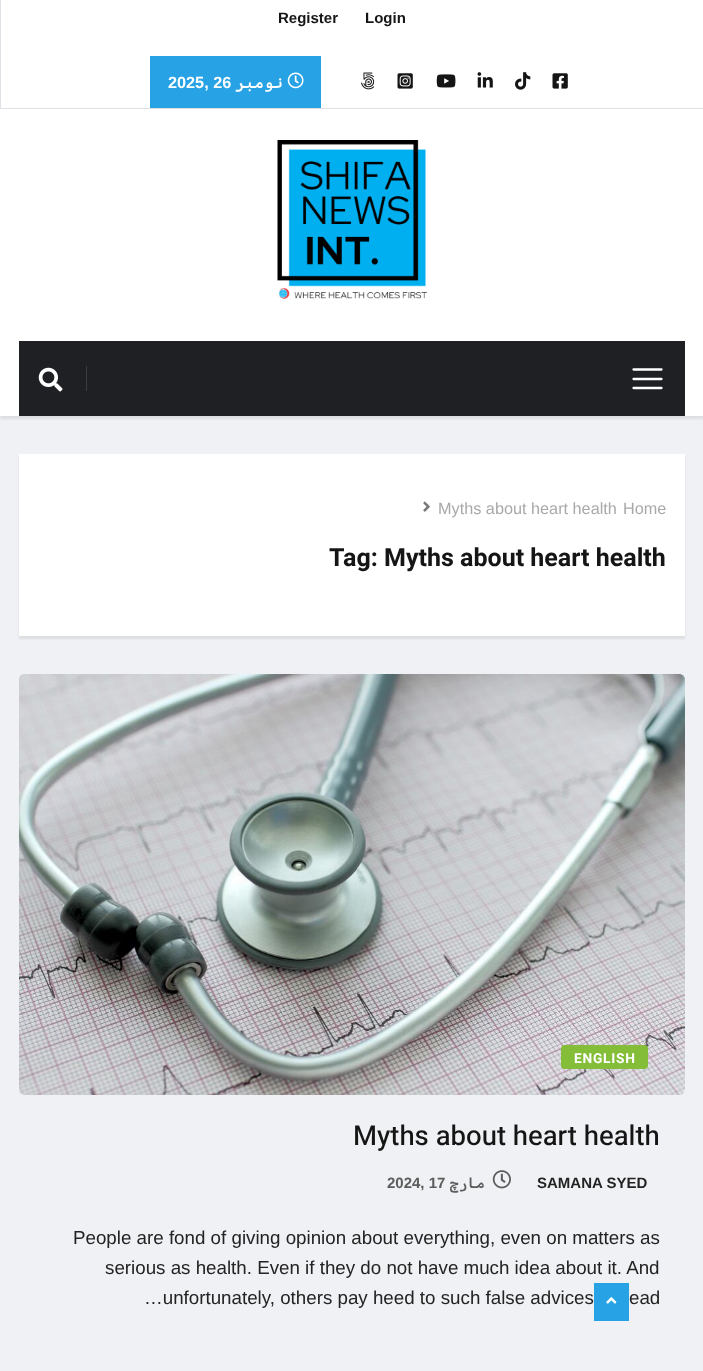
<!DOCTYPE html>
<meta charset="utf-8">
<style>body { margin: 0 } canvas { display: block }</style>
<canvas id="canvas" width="703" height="1371"></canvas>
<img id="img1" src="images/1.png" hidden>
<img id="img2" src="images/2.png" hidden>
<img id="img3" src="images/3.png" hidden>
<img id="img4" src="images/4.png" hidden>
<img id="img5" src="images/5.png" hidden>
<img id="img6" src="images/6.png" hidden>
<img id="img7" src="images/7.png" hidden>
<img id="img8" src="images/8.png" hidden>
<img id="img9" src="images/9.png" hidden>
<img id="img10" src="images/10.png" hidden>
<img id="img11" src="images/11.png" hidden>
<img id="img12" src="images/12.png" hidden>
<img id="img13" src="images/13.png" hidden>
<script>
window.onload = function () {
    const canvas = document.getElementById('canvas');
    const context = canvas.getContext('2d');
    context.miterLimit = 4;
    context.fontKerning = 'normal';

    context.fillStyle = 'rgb(240, 241, 244)';
    context.fillRect(0, 0, 703, 1371);
    context.fillStyle = 'rgb(255, 255, 255)';
    context.fillRect(1, 0, 702, 108);
    context.fillStyle = 'rgb(222, 226, 230)';
    context.fillRect(0, 108, 703, 1);
    context.fillRect(0, 0, 1, 109);
    context.fillStyle = 'rgb(39, 162, 229)';
    context.fillRect(150, 56, 171, 52);
    context.drawImage(document.getElementById('img1'), 287, 72, 17, 17);
    context.drawImage(document.getElementById('img2'), 361, 72, 14, 18);
    context.drawImage(document.getElementById('img3'), 397, 73, 16, 16);
    context.drawImage(document.getElementById('img4'), 436, 74, 20, 14);
    context.drawImage(document.getElementById('img5'), 477, 72, 16, 16);
    context.drawImage(document.getElementById('img6'), 515, 72, 16, 18);
    context.drawImage(document.getElementById('img7'), 552, 73, 16, 16);
    context.fillStyle = 'rgb(255, 255, 255)';
    context.fillRect(0, 109, 703, 232);
    context.drawImage(document.getElementById('img8'), 277, 140, 151, 159);
    context.fillStyle = 'rgba(0, 0, 0, 0.08)';
    context.filter = 'blur(1px)';
    context.beginPath();
    context.rect(0, 344, 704, 75);
    context.fill();
    context.filter = 'none';
    context.fillStyle = 'rgb(255, 255, 255)';
    context.fillRect(0, 341, 703, 75);
    context.fillStyle = 'rgb(31, 32, 36)';
    context.fillRect(19, 341, 666, 75);
    context.beginPath();
    context.moveTo(633.5, 369.5);
    context.lineTo(661.5, 369.5);
    context.moveTo(633.5, 379);
    context.lineTo(661.5, 379);
    context.moveTo(633.5, 388);
    context.lineTo(661.5, 388);
    context.strokeStyle = 'rgb(255, 255, 255)';
    context.lineWidth = 2.3;
    context.lineCap = 'round';
    context.stroke();
    context.drawImage(document.getElementById('img9'), 38, 367, 25, 25);
    context.fillStyle = 'rgb(60, 60, 60)';
    context.fillRect(86, 366, 1, 25);
    context.fillStyle = 'rgba(0, 0, 0, 0.08)';
    context.filter = 'blur(1px)';
    context.beginPath();
    context.rect(19, 456, 666, 183);
    context.fill();
    context.filter = 'none';
    context.fillStyle = 'rgb(255, 255, 255)';
    context.fillRect(19, 454, 666, 182);
    context.drawImage(document.getElementById('img10'), 423, 501, 7, 11);
    context.drawImage(document.getElementById('img11'), 19, 674, 666, 421);
    context.fillStyle = 'rgb(132, 190, 56)';
    context.beginPath();
    context.roundRect(561, 1045, 87, 24, 4);
    context.fill();
    context.drawImage(document.getElementById('img12'), 492, 1170, 19, 19);
    context.fillStyle = 'rgb(39, 162, 229)';
    context.fillRect(594, 1283, 35, 38);
    context.drawImage(document.getElementById('img13'), 606, 1297, 11, 7);
    context.font = 'bold 15px Arimo';
    context.fillStyle = 'rgb(21, 21, 21)';
    context.fillText('Register', 278, 23);
    context.fillText('Login', 365, 23);
    context.font = 'bold 16.25px Arimo';
    context.fillStyle = 'rgb(255, 255, 255)';
    context.fillText('2025, 26', 168, 88);
    context.direction = 'rtl';
    context.font = '600 16.25px Cascadia Code';
    context.fillText('نومبر', 283, 88);
    context.direction = 'ltr';
    context.font = '16.25px Arimo';
    context.fillStyle = 'rgb(169, 169, 169)';
    context.fillText('Myths about heart health', 438, 514);
    context.fillText('Home', 623, 514);
    context.font = 'bold 25px Heebo';
    context.fillStyle = 'rgb(21, 21, 21)';
    context.fillText('Tag: Myths about heart health', 329, 566);
    context.letterSpacing = '0.75px';
    context.font = 'bold 13.75px Heebo';
    context.fillStyle = 'rgb(255, 255, 255)';
    context.fillText('ENGLISH', 574, 1063);
    context.letterSpacing = '0px';
    context.font = '500 27.5px Heebo';
    context.fillStyle = 'rgb(21, 21, 21)';
    context.fillText('Myths about heart health', 353, 1145);
    context.font = 'bold 15px Arimo';
    context.fillStyle = 'rgb(92, 92, 92)';
    context.fillText('2024, 17', 387, 1188);
    context.direction = 'rtl';
    context.font = '600 15px Cascadia Code';
    context.fillText('مارچ', 485, 1188);
    context.direction = 'ltr';
    context.font = 'bold 15px Arimo';
    context.fillStyle = 'rgb(35, 35, 35)';
    context.fillText('SAMANA SYED', 537, 1188);
    context.font = '18.75px Arimo';
    context.fillText('People are fond of giving opinion about everything, even on matters as', 73, 1244);
    context.fillText('serious as health. Even if they do not have much idea about it. And', 105, 1274);
    context.fillText('…unfortunately, others pay heed to such false advices', 144, 1304);
    context.fillText('ead', 629, 1304);
};
</script>
